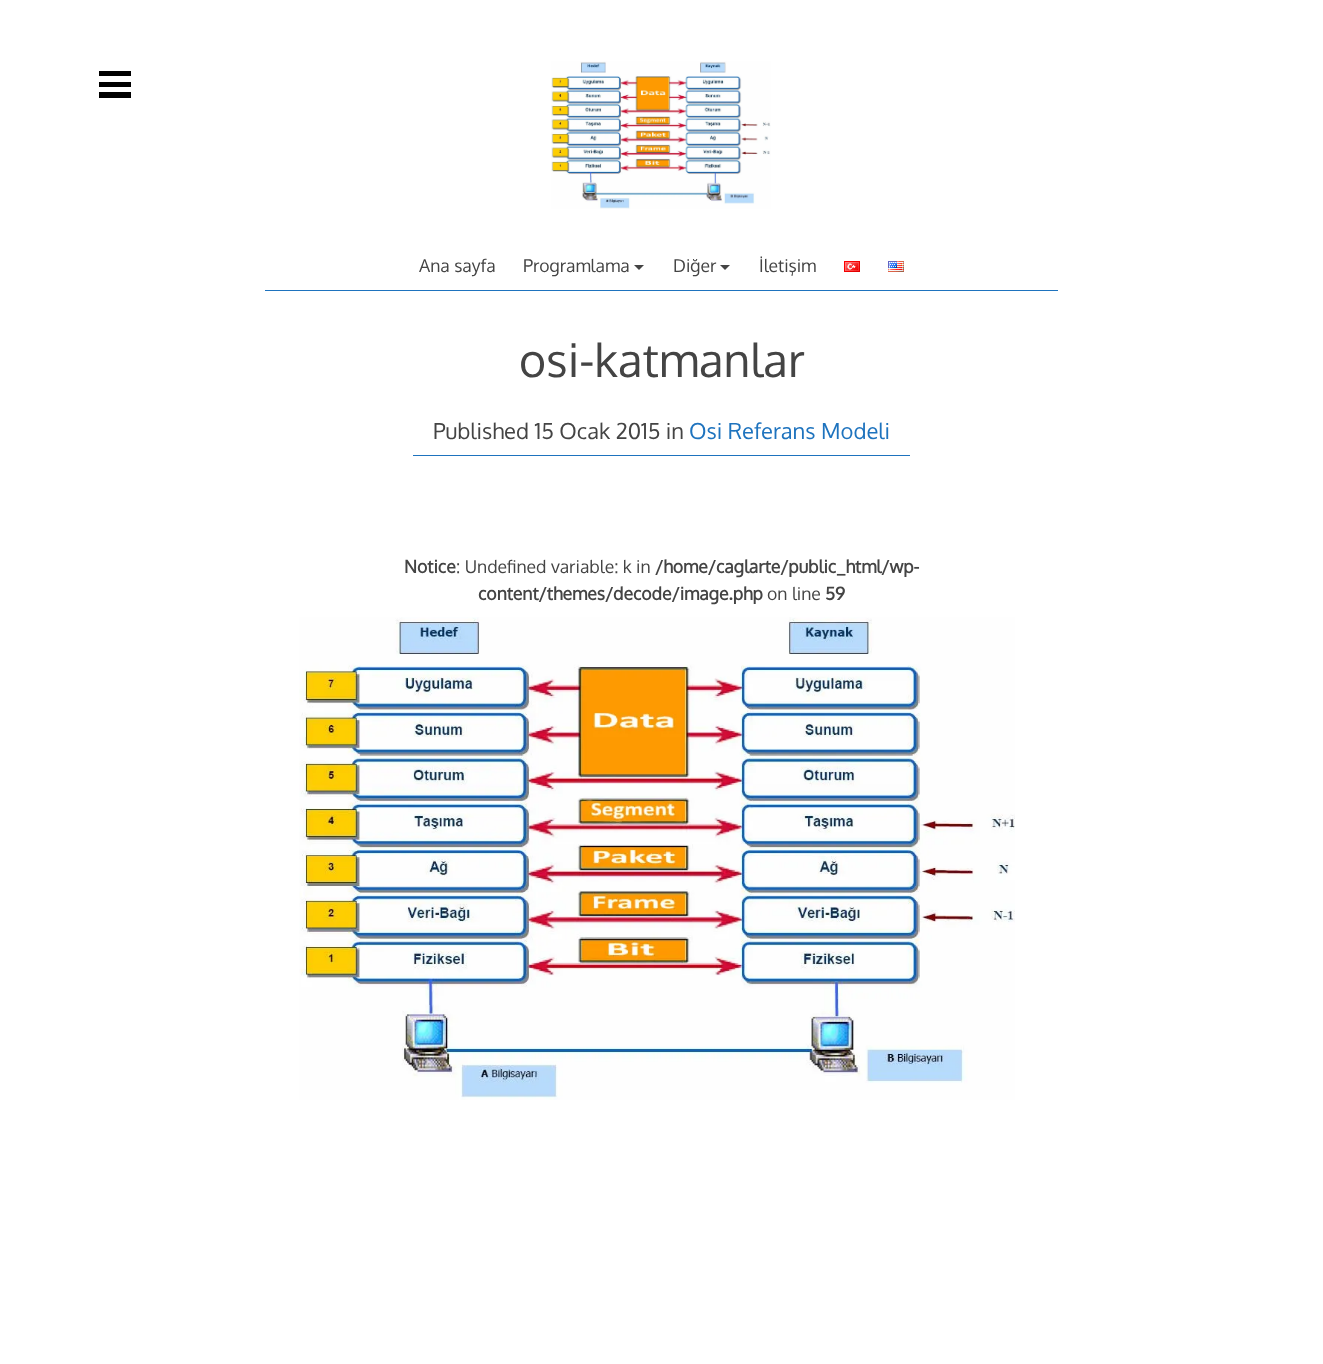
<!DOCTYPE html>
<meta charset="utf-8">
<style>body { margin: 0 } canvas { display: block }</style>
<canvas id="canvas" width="1323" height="1364"></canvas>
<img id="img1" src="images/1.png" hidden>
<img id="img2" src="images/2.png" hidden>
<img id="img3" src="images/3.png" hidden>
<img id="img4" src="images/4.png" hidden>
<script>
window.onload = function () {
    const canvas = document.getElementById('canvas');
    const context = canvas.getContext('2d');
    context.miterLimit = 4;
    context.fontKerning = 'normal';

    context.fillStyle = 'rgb(255, 255, 255)';
    context.fillRect(0, 0, 1323, 1364);
    context.fillStyle = 'rgb(0, 0, 0)';
    context.fillRect(99, 71, 32, 5);
    context.fillRect(99, 82, 32, 5);
    context.fillRect(99, 92, 32, 6);
    context.fillStyle = 'rgb(30, 115, 190)';
    context.fillRect(265, 290, 793, 1);
    context.drawImage(document.getElementById('img1'), 551, 61, 220, 148);
    context.fillStyle = 'rgb(68, 68, 68)';
    context.beginPath();
    context.moveTo(634, 265);
    context.lineTo(644, 265);
    context.lineTo(639, 270);
    context.closePath();
    context.fill();
    context.beginPath();
    context.moveTo(720, 265);
    context.lineTo(730, 265);
    context.lineTo(725, 270);
    context.closePath();
    context.fill();
    context.drawImage(document.getElementById('img2'), 844, 261, 16, 11);
    context.drawImage(document.getElementById('img3'), 888, 261, 16, 11);
    context.fillStyle = 'rgb(30, 115, 190)';
    context.fillRect(413, 455, 497, 1);
    context.drawImage(document.getElementById('img4'), 299, 617, 716, 483);
    context.font = '17.6px Oxygen';
    context.fillStyle = 'rgb(68, 68, 68)';
    context.fillText('Ana sayfa', 419, 272);
    context.fillText('Programlama', 523, 272);
    context.fillText('Diğer', 673, 272);
    context.fillText('İletişim', 759, 272);
    context.font = '46.25px Oxygen';
    context.fillText('osi-katmanlar', 519, 377);
    context.font = '22px Oxygen';
    context.fillText('Published 15 Ocak 2015 in', 433, 439);
    context.fillStyle = 'rgb(30, 115, 190)';
    context.fillText('Osi Referans Modeli', 689, 439);
    context.font = 'bold 17.6px Oxygen';
    context.fillStyle = 'rgb(68, 68, 68)';
    context.fillText('Notice', 404, 573);
    context.font = '17.6px Oxygen';
    context.fillText(': Undefined variable: k in', 456, 573);
    context.font = 'bold 17.6px Oxygen';
    context.fillText('/home/caglarte/public_html/wp-', 655, 573);
    context.fillText('content/themes/decode/image.php', 478, 600);
    context.font = '17.6px Oxygen';
    context.fillText('on line', 767, 600);
    context.font = 'bold 17.6px Oxygen';
    context.fillText('59', 825, 600);
};
</script>
